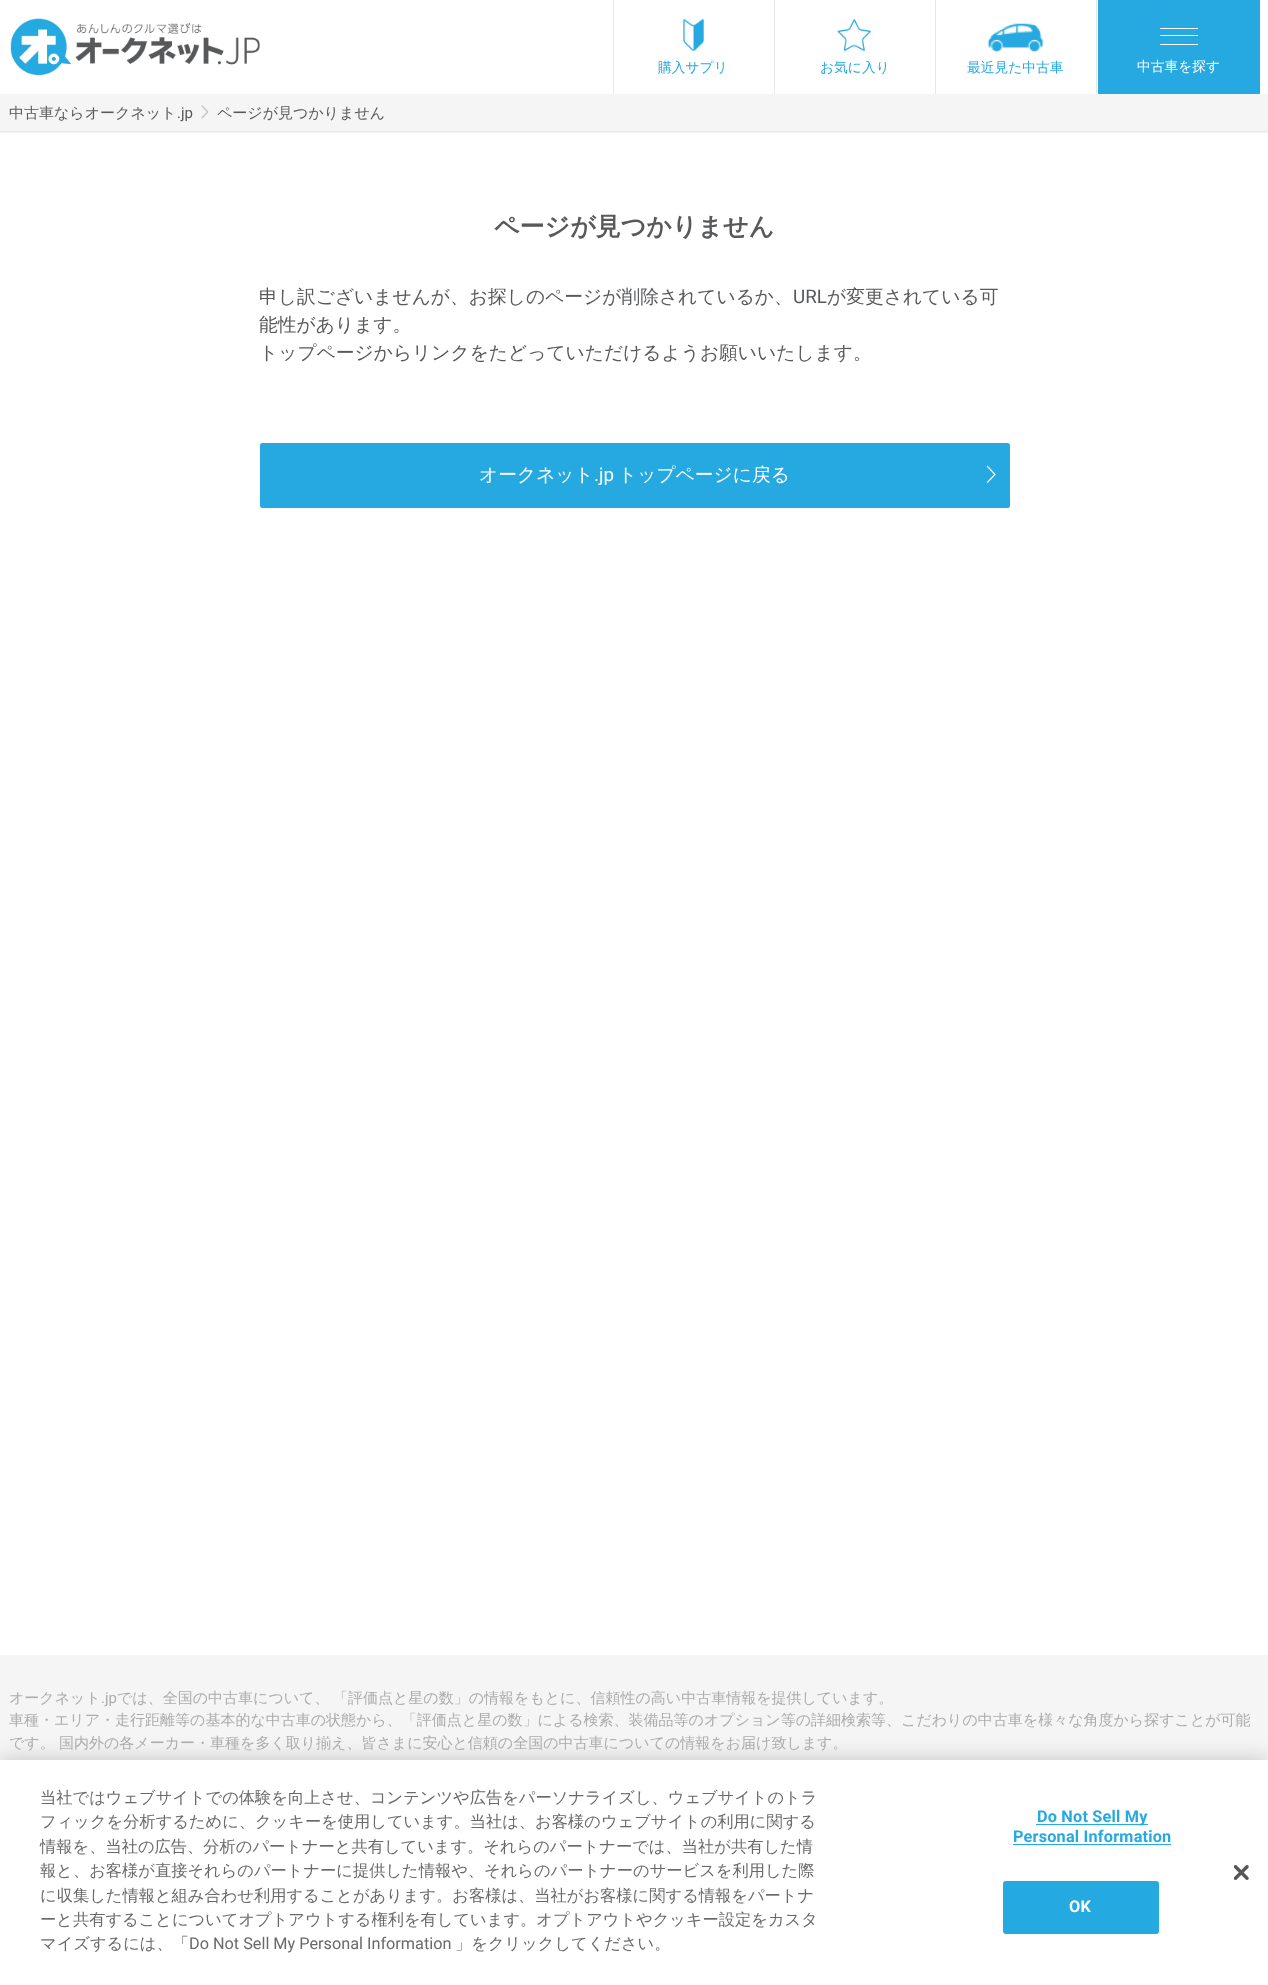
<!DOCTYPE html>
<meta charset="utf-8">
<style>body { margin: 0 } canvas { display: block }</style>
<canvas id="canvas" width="1268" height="1985"></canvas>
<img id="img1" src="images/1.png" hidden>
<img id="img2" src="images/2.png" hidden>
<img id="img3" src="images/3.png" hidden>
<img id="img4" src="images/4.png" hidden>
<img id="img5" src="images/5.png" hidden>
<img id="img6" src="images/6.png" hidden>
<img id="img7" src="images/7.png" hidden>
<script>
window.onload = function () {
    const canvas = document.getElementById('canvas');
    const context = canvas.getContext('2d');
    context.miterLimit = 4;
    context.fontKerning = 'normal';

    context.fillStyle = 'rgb(255, 255, 255)';
    context.fillRect(0, 0, 1268, 1985);
    context.drawImage(document.getElementById('img1'), 10, 18, 250, 57);
    context.fillStyle = 'rgb(231, 232, 232)';
    context.fillRect(774, 0, 1, 94);
    context.fillRect(613, 0, 1, 94);
    context.drawImage(document.getElementById('img2'), 682, 18, 22, 34);
    context.fillRect(935, 0, 1, 94);
    context.drawImage(document.getElementById('img3'), 837, 18, 35, 34);
    context.fillRect(1096, 0, 1, 94);
    context.drawImage(document.getElementById('img4'), 987, 23, 57, 29);
    context.fillStyle = 'rgb(37, 169, 224)';
    context.fillRect(1098, 0, 162, 94);
    context.fillStyle = 'rgb(255, 255, 255)';
    context.beginPath();
    context.roundRect(1160, 35, 38, 1, 0.5);
    context.fill();
    context.beginPath();
    context.roundRect(1160, 28, 38, 1, 0.5);
    context.fill();
    context.beginPath();
    context.roundRect(1160, 44, 38, 1, 0.5);
    context.fill();
    context.fillStyle = 'rgb(245, 245, 245)';
    context.fillRect(0, 94, 1268, 39);
    context.fillStyle = 'rgb(231, 232, 232)';
    context.fillRect(0, 131, 1268, 1);
    context.drawImage(document.getElementById('img5'), 201, 105, 8, 14);
    context.fillStyle = 'rgb(37, 169, 224)';
    context.beginPath();
    context.roundRect(260, 443, 750, 65, 2.5);
    context.fill();
    context.drawImage(document.getElementById('img6'), 986, 465, 10, 18);
    context.fillStyle = 'rgb(245, 245, 245)';
    context.fillRect(0, 1655, 1268, 105);
    context.fillStyle = 'rgba(0, 0, 0, 0.2)';
    context.filter = 'blur(11px)';
    context.beginPath();
    context.rect(0, 1760, 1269, 225);
    context.fill();
    context.filter = 'none';
    context.fillStyle = 'rgb(255, 255, 255)';
    context.fillRect(0, 1760, 1268, 225);
    context.fillStyle = 'rgb(36, 170, 225)';
    context.fillRect(1036, 1824, 112, 1);
    context.fillRect(1013, 1844, 158, 1);
    context.beginPath();
    context.roundRect(1003.5, 1881.5, 155, 52, 2);
    context.fill();
    context.strokeStyle = 'rgb(36, 170, 225)';
    context.stroke();
    context.drawImage(document.getElementById('img7'), 1234, 1865, 15, 15);
    context.font = '500 13.75px WenQuanYi Zen Hei';
    context.fillStyle = 'rgb(37, 169, 224)';
    context.fillText('購入サプリ', 658, 72);
    context.fillText('お気に入り', 820, 72);
    context.fillText('最近見た中古車', 967, 72);
    context.fillStyle = 'rgb(255, 255, 255)';
    context.fillText('中古車を探す', 1137, 71);
    context.font = '500 15px WenQuanYi Zen Hei';
    context.fillStyle = 'rgb(88, 89, 91)';
    context.fillText('中古車ならオークネット', 9, 118);
    context.font = '15px Roboto';
    context.fillText('.jp', 177, 118);
    context.font = '500 15px WenQuanYi Zen Hei';
    context.fillText('ページが見つかりません', 217, 118);
    context.font = 'bold 25px WenQuanYi Zen Hei';
    context.fillText('ページが見つかりません', 494, 235);
    context.font = '500 18.75px WenQuanYi Zen Hei';
    context.fillText('申し訳ございませんが、お探しのページが削除されているか、', 259, 303);
    context.font = '18.75px Roboto';
    context.fillText('URL', 793, 303);
    context.font = '500 18.75px WenQuanYi Zen Hei';
    context.fillText('が変更されている可', 827, 303);
    context.fillText('能性があります。', 259, 331);
    context.fillText('トップページからリンクをたどっていただけるようお願いいたします。', 259, 359);
    context.fillStyle = 'rgb(255, 255, 255)';
    context.fillText('オークネット', 479, 481);
    context.font = '18.75px Roboto';
    context.fillText('.jp', 594, 481);
    context.font = '500 18.75px WenQuanYi Zen Hei';
    context.fillText('トップページに戻る', 618, 481);
    context.font = '500 15px WenQuanYi Zen Hei';
    context.fillStyle = 'rgb(172, 172, 173)';
    context.fillText('オークネット', 9, 1703);
    context.font = '15px Roboto';
    context.fillText('.jp', 101, 1703);
    context.font = '500 15px WenQuanYi Zen Hei';
    context.fillText('では、全国の中古車について、', 117, 1703);
    context.fillText('「評価点と星の数」の情報をもとに、信頼性の高い中古車情報を提供しています。', 333, 1703);
    context.fillText('車種・エリア・走行距離等の基本的な中古車の状態から、「評価点と星の数」による検索、装備品等のオプション等の詳細検索等、こだわりの中古車を様々な角度から探すことが可能', 9, 1725);
    context.fillText('です。', 9, 1748);
    context.fillText('国内外の各メーカー・車種を多く取り揃え、皆さまに安心と信頼の全国の中古車についての情報をお届け致します。', 59, 1748);
    context.font = '500 16.25px WenQuanYi Zen Hei';
    context.fillStyle = 'rgb(105, 105, 105)';
    context.fillText('当社ではウェブサイトでの体験を向上させ、コンテンツや広告をパーソナライズし、ウェブサイトのトラ', 40, 1803);
    context.fillText('フィックを分析するために、クッキーを使用しています。当社は、お客様のウェブサイトの利用に関する', 40, 1827);
    context.fillText('情報を、当社の広告、分析のパートナーと共有しています。それらのパートナーでは、当社が共有した情', 40, 1852);
    context.fillText('報と、お客様が直接それらのパートナーに提供した情報や、それらのパートナーのサービスを利用した際', 40, 1876);
    context.fillText('に収集した情報と組み合わせ利用することがあります。お客様は、当社がお客様に関する情報をパートナ', 40, 1901);
    context.fillText('ーと共有することについてオプトアウトする権利を有しています。オプトアウトやクッキー設定をカスタ', 40, 1925);
    context.fillText('マイズするには、「', 40, 1949);
    context.font = '16.25px Roboto';
    context.fillText('Do Not Sell My Personal Information', 189, 1949);
    context.font = '500 16.25px WenQuanYi Zen Hei';
    context.fillText('」をクリックしてください。', 455, 1949);
    context.letterSpacing = '0.2px';
    context.font = 'bold 16.25px Roboto';
    context.fillStyle = 'rgb(37, 169, 224)';
    context.fillText('Do Not Sell My', 1037, 1822);
    context.fillText('Personal Information', 1013, 1842);
    context.fillStyle = 'rgb(255, 255, 255)';
    context.fillText('OK', 1069, 1912);
};
</script>
